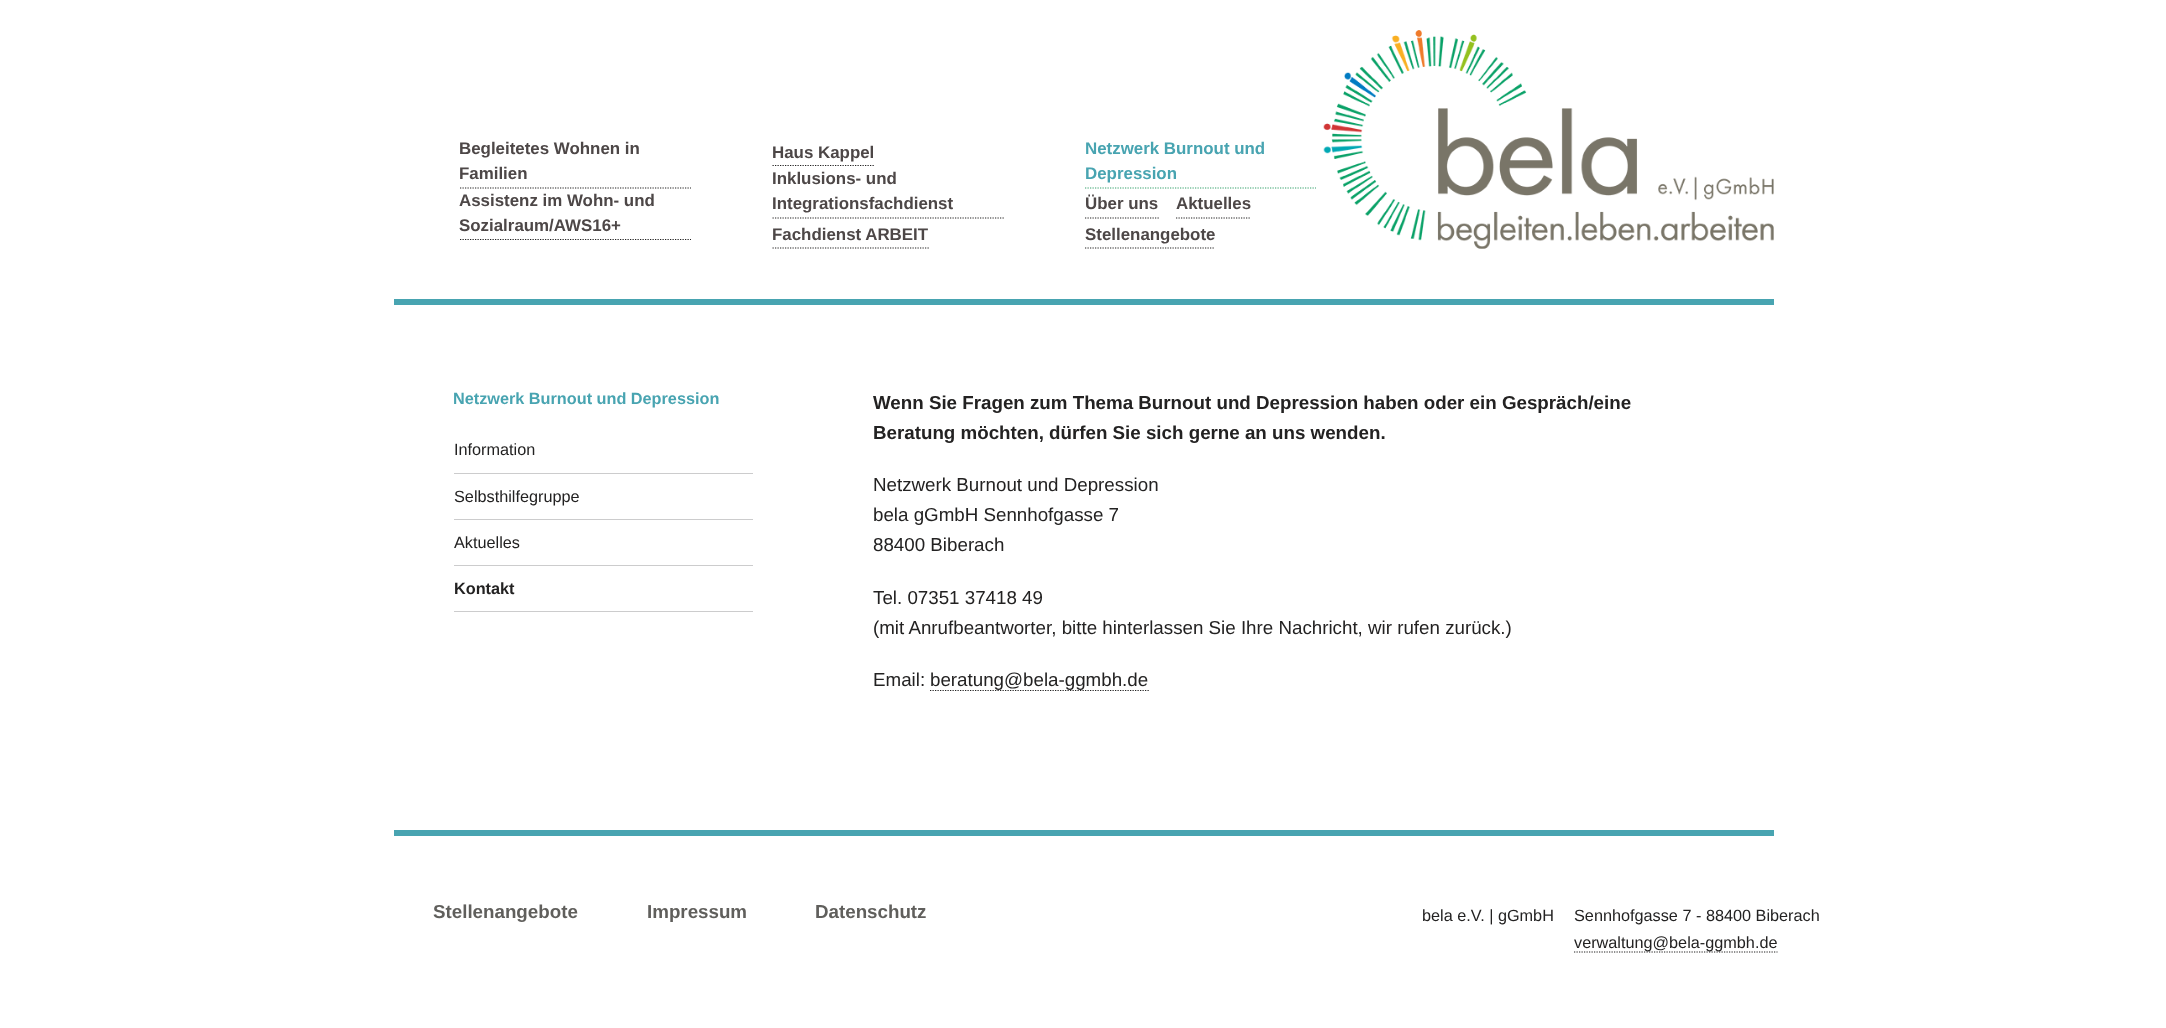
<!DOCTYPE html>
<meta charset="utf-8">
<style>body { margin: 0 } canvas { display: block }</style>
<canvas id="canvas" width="2166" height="1028"></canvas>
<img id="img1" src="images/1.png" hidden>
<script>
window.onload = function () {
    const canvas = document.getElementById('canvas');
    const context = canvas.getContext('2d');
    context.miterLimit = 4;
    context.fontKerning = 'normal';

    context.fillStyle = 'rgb(255, 255, 255)';
    context.fillRect(0, 0, 2166, 1028);
    context.beginPath();
    context.moveTo(460, 188);
    context.lineTo(691, 188);
    context.strokeStyle = 'rgb(35, 34, 34)';
    context.lineWidth = 1.2;
    context.setLineDash([1.25, 1.25]);
    context.stroke();
    context.beginPath();
    context.moveTo(772.5, 165.5);
    context.lineTo(875, 165.5);
    context.stroke();
    context.beginPath();
    context.moveTo(1085, 188);
    context.lineTo(1316, 188);
    context.strokeStyle = 'rgb(52, 160, 108)';
    context.stroke();
    context.beginPath();
    context.moveTo(460, 239.5);
    context.lineTo(691, 239.5);
    context.strokeStyle = 'rgb(35, 34, 34)';
    context.stroke();
    context.beginPath();
    context.moveTo(772.5, 218);
    context.lineTo(1004, 218);
    context.stroke();
    context.beginPath();
    context.moveTo(1085, 218);
    context.lineTo(1159, 218);
    context.stroke();
    context.beginPath();
    context.moveTo(1176, 218);
    context.lineTo(1251, 218);
    context.stroke();
    context.beginPath();
    context.moveTo(772.5, 248);
    context.lineTo(929, 248);
    context.stroke();
    context.beginPath();
    context.moveTo(1085, 248);
    context.lineTo(1215, 248);
    context.stroke();
    context.drawImage(document.getElementById('img1'), 1323, 30, 451, 219);
    context.fillStyle = 'rgb(72, 164, 177)';
    context.fillRect(394, 299, 1380, 6);
    context.fillRect(394, 830, 1380, 6);
    context.fillStyle = 'rgb(204, 204, 205)';
    context.fillRect(454, 473, 299, 1);
    context.fillRect(454, 519, 299, 1);
    context.fillRect(454, 565, 299, 1);
    context.fillRect(454, 611, 299, 1);
    context.beginPath();
    context.moveTo(930, 690.5);
    context.lineTo(1149, 690.5);
    context.stroke();
    context.beginPath();
    context.moveTo(1574, 952);
    context.lineTo(1759, 952);
    context.stroke();
    context.beginPath();
    context.moveTo(1759, 952);
    context.lineTo(1777.5, 952);
    context.stroke();
    context.font = 'bold 16.9px Liberation Sans';
    context.fillStyle = 'rgb(77, 71, 71)';
    context.fillText('Begleitetes Wohnen in', 459, 154);
    context.fillText('Familien', 459, 179);
    context.fillText('Haus Kappel', 772, 158);
    context.fillStyle = 'rgb(72, 164, 177)';
    context.fillText('Netzwerk Burnout und', 1085, 154);
    context.fillText('Depression', 1085, 179);
    context.fillStyle = 'rgb(77, 71, 71)';
    context.fillText('Assistenz im Wohn- und', 459, 206);
    context.fillText('Sozialraum/AWS16+', 459, 231);
    context.fillText('Inklusions- und', 772, 184);
    context.fillText('Integrationsfachdienst', 772, 209);
    context.fillText('Über uns', 1085, 209);
    context.fillText('Aktuelles', 1176, 209);
    context.fillText('Fachdienst ARBEIT', 772, 240);
    context.fillText('Stellenangebote', 1085, 240);
    context.font = 'bold 16.25px Liberation Sans';
    context.fillStyle = 'rgb(72, 164, 177)';
    context.fillText('Netzwerk Burnout und Depression', 453, 404);
    context.font = '16.25px Liberation Sans';
    context.fillStyle = 'rgb(35, 34, 34)';
    context.fillText('Information', 454, 455);
    context.fillText('Selbsthilfegruppe', 454, 502);
    context.fillText('Aktuelles', 454, 548);
    context.font = 'bold 16.25px Liberation Sans';
    context.fillText('Kontakt', 454, 594);
    context.font = 'bold 18.75px Liberation Sans';
    context.fillText('Wenn Sie Fragen zum Thema Burnout und Depression haben oder ein Gespräch/eine', 873, 409);
    context.fillText('Beratung möchten, dürfen Sie sich gerne an uns wenden.', 873, 439);
    context.font = '18.75px Liberation Sans';
    context.fillText('Netzwerk Burnout und Depression', 873, 491);
    context.fillText('bela gGmbH Sennhofgasse 7', 873, 521);
    context.fillText('88400 Biberach', 873, 551);
    context.fillText('Tel. 07351 37418 49', 873, 604);
    context.fillText('(mit Anrufbeantworter, bitte hinterlassen Sie Ihre Nachricht, wir rufen zurück.)', 873, 634);
    context.fillText('Email:', 873, 686);
    context.fillText('beratung@bela-ggmbh.de', 930, 686);
    context.font = 'bold 18.75px Liberation Sans';
    context.fillStyle = 'rgb(96, 95, 92)';
    context.fillText('Stellenangebote', 433, 918);
    context.fillText('Impressum', 647, 918);
    context.fillText('Datenschutz', 815, 918);
    context.font = '16.25px Liberation Sans';
    context.fillStyle = 'rgb(35, 34, 34)';
    context.fillText('bela e.V. | gGmbH', 1422, 921);
    context.fillText('Sennhofgasse 7 - 88400 Biberach', 1574, 921);
    context.fillText('verwaltung@bela-ggmbh.de', 1574, 948);
};
</script>
